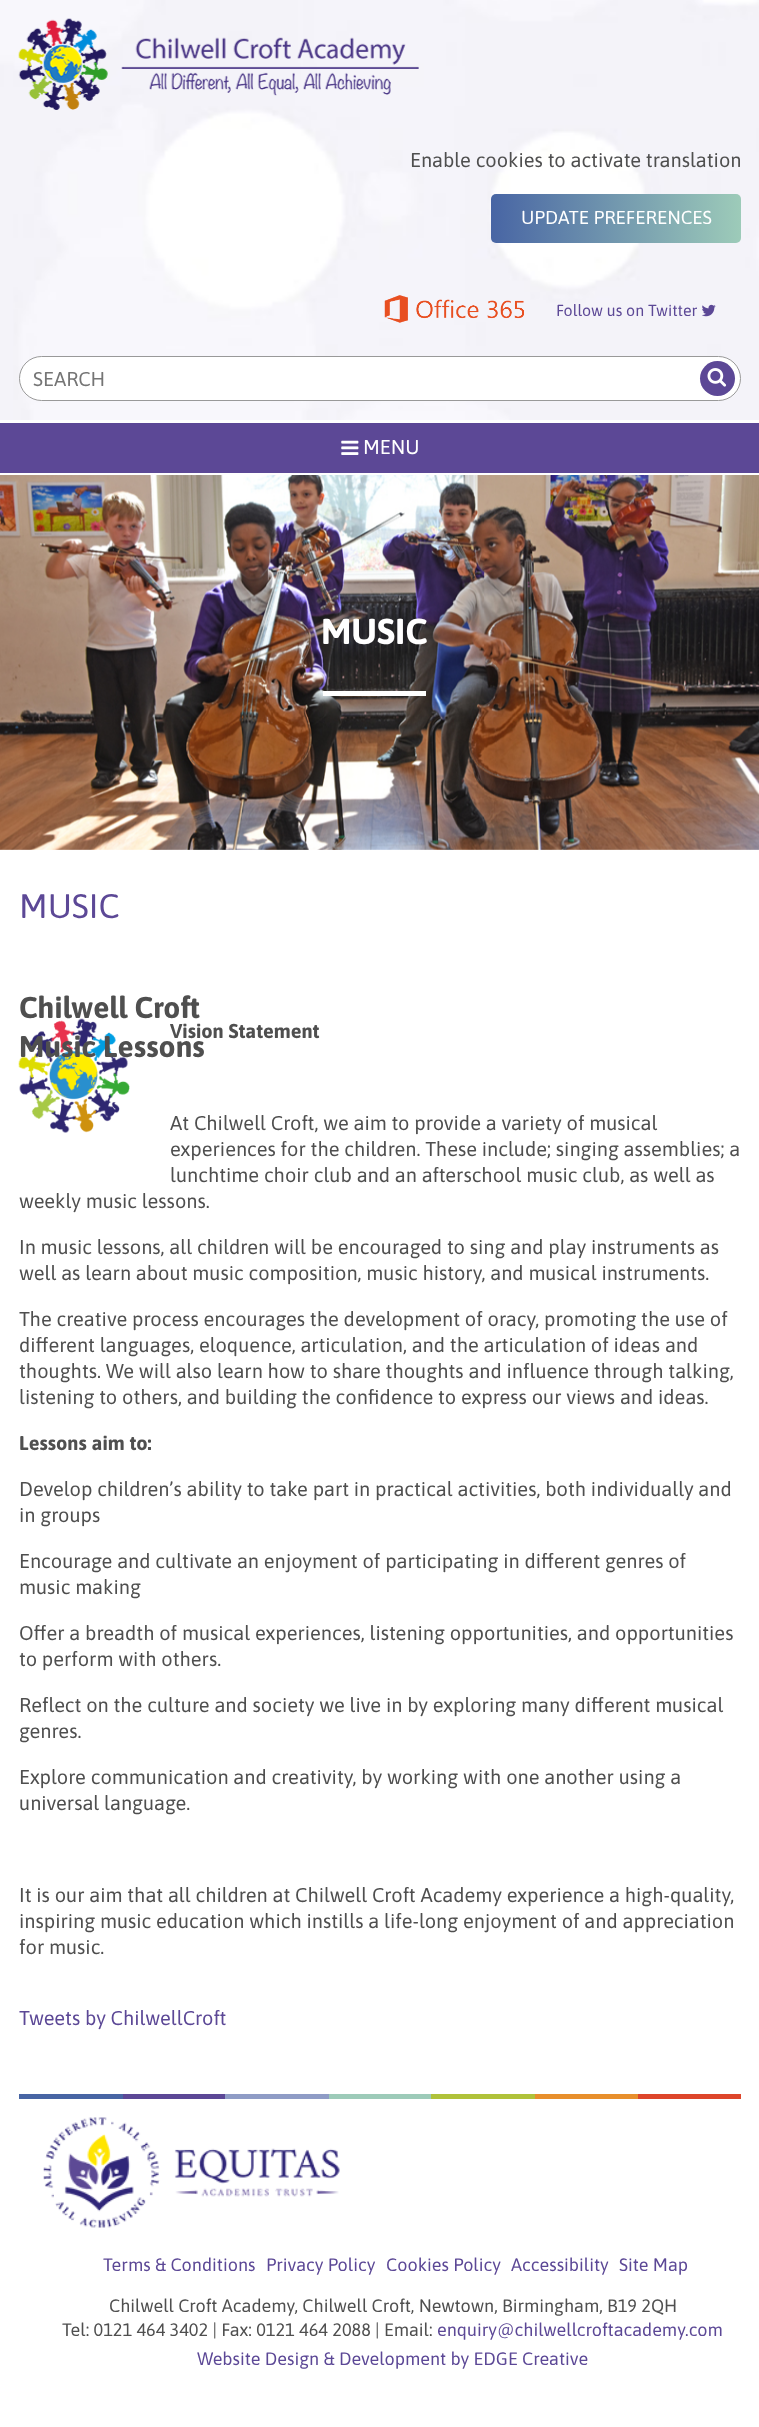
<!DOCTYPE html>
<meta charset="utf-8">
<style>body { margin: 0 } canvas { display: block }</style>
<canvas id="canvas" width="759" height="2427"></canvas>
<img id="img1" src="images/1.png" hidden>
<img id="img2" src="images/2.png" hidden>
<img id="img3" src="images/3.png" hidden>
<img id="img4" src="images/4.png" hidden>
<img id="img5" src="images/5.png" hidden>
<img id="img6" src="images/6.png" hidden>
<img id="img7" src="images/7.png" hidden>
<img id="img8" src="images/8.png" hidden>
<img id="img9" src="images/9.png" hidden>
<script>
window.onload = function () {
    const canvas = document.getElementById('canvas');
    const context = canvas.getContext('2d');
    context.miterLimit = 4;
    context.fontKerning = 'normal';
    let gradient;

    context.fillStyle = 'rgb(255, 255, 255)';
    context.fillRect(0, 0, 759, 2427);
    context.drawImage(document.getElementById('img1'), 0, 0, 759, 420);
    context.drawImage(document.getElementById('img2'), 18, 18, 401, 92);
    gradient = context.createLinearGradient(491, 218, 741, 218);
    gradient.addColorStop(0, 'rgb(72, 101, 164)');
    gradient.addColorStop(1, 'rgb(157, 203, 185)');
    context.fillStyle = gradient;
    context.beginPath();
    context.roundRect(491, 194, 250, 49, 5);
    context.fill();
    context.drawImage(document.getElementById('img3'), 384, 295, 140, 28);
    context.drawImage(document.getElementById('img4'), 702, 304, 14, 13);
    context.fillStyle = 'rgb(255, 255, 255)';
    context.beginPath();
    context.roundRect(19.5, 356.5, 721, 44, 22);
    context.fill();
    context.strokeStyle = 'rgb(153, 153, 153)';
    context.stroke();
    context.fillStyle = 'rgb(92, 72, 150)';
    context.beginPath();
    context.arc(717.5, 378.5, 17.5, 0, 2 * Math.PI);
    context.fill();
    context.drawImage(document.getElementById('img5'), 707, 368, 20, 19);
    context.fillRect(0, 423, 759, 50);
    context.drawImage(document.getElementById('img6'), 341, 440, 18, 15);
    context.drawImage(document.getElementById('img7'), 0, 475, 759, 375);
    context.fillStyle = 'rgb(255, 255, 255)';
    context.fillRect(323, 691, 103, 5);
    context.drawImage(document.getElementById('img8'), 18, 1018, 112, 115);
    context.fillStyle = 'rgb(72, 101, 164)';
    context.fillRect(19, 2094, 104, 5);
    context.fillStyle = 'rgb(92, 72, 150)';
    context.fillRect(123, 2094, 102, 5);
    context.fillStyle = 'rgb(143, 156, 198)';
    context.fillRect(225, 2094, 104, 5);
    context.fillStyle = 'rgb(157, 203, 185)';
    context.fillRect(329, 2094, 102, 5);
    context.fillStyle = 'rgb(176, 194, 58)';
    context.fillRect(431, 2094, 104, 5);
    context.fillStyle = 'rgb(232, 143, 44)';
    context.fillRect(535, 2094, 103, 5);
    context.fillStyle = 'rgb(222, 70, 43)';
    context.fillRect(638, 2094, 103, 5);
    context.drawImage(document.getElementById('img9'), 43, 2117, 297, 111);
    context.font = '20px Asap';
    context.fillStyle = 'rgb(79, 79, 79)';
    context.fillText('Enable cookies to activate translation', 410, 167);
    context.font = '18.75px Asap';
    context.fillStyle = 'rgb(255, 255, 255)';
    context.fillText('UPDATE PREFERENCES', 521, 224);
    context.font = '16px Asap';
    context.fillStyle = 'rgb(92, 72, 150)';
    context.fillText('Follow us on Twitter', 556, 316);
    context.font = '20px Asap';
    context.fillStyle = 'rgb(117, 117, 117)';
    context.fillText('SEARCH', 33, 386);
    context.fillStyle = 'rgb(255, 255, 255)';
    context.fillText('MENU', 363, 454);
    context.font = 'bold 36px Asap';
    context.fillText('MUSIC', 321, 644);
    context.font = '34px Asap';
    context.fillStyle = 'rgb(92, 72, 150)';
    context.fillText('MUSIC', 19, 918);
    context.font = 'bold 30px Asap';
    context.fillStyle = 'rgb(79, 79, 79)';
    context.fillText('Chilwell Croft', 19, 1018);
    context.fillText('Music Lessons', 19, 1057);
    context.font = 'bold 20px Asap';
    context.fillText('Vision Statement', 170, 1038);
    context.font = '20px Asap';
    context.fillText('At Chilwell Croft, we aim to provide a variety of musical', 170, 1130);
    context.fillText('experiences for the children. These include; singing assemblies; a', 170, 1156);
    context.fillText('lunchtime choir club and an afterschool music club, as well as', 170, 1182);
    context.fillText('weekly music lessons.', 19, 1208);
    context.fillText('In music lessons, all children will be encouraged to sing and play instruments as', 19, 1254);
    context.fillText('well as learn about music composition, music history, and musical instruments.', 19, 1280);
    context.fillText('The creative process encourages the development of oracy, promoting the use of', 19, 1326);
    context.fillText('different languages, eloquence, articulation, and the articulation of ideas and', 19, 1352);
    context.fillText('thoughts. We will also learn how to share thoughts and influence through talking,', 19, 1378);
    context.fillText('listening to others, and building the confidence to express our views and ideas.', 19, 1404);
    context.font = 'bold 20px Asap';
    context.fillText('Lessons aim to:', 19, 1450);
    context.font = '20px Asap';
    context.fillText('Develop children’s ability to take part in practical activities, both individually and', 19, 1496);
    context.fillText('in groups', 19, 1522);
    context.fillText('Encourage and cultivate an enjoyment of participating in different genres of', 19, 1568);
    context.fillText('music making', 19, 1594);
    context.fillText('Offer a breadth of musical experiences, listening opportunities, and opportunities', 19, 1640);
    context.fillText('to perform with others.', 19, 1666);
    context.fillText('Reflect on the culture and society we live in by exploring many different musical', 19, 1712);
    context.fillText('genres.', 19, 1738);
    context.fillText('Explore communication and creativity, by working with one another using a', 19, 1784);
    context.fillText('universal language.', 19, 1810);
    context.fillText('It is our aim that all children at Chilwell Croft Academy experience a high-quality,', 19, 1902);
    context.fillText('inspiring music education which instills a life-long enjoyment of and appreciation', 19, 1928);
    context.fillText('for music.', 19, 1954);
    context.fillStyle = 'rgb(92, 72, 150)';
    context.fillText('Tweets by ChilwellCroft', 19, 2025);
    context.font = '18px Asap';
    context.fillText('Terms & Conditions', 103, 2271);
    context.fillText('Privacy Policy', 266, 2271);
    context.fillText('Cookies Policy', 386, 2271);
    context.fillText('Accessibility', 511, 2271);
    context.fillText('Site Map', 619, 2271);
    context.fillStyle = 'rgb(79, 79, 79)';
    context.fillText('Chilwell Croft Academy, Chilwell Croft, Newtown, Birmingham, B19 2QH', 109, 2312);
    context.fillText('Tel: 0121 464 3402 | Fax: 0121 464 2088 | Email:', 62, 2336);
    context.fillStyle = 'rgb(92, 72, 150)';
    context.fillText('enquiry@chilwellcroftacademy.com', 437, 2336);
    context.fillText('Website Design & Development by EDGE Creative', 197, 2365);
};
</script>
